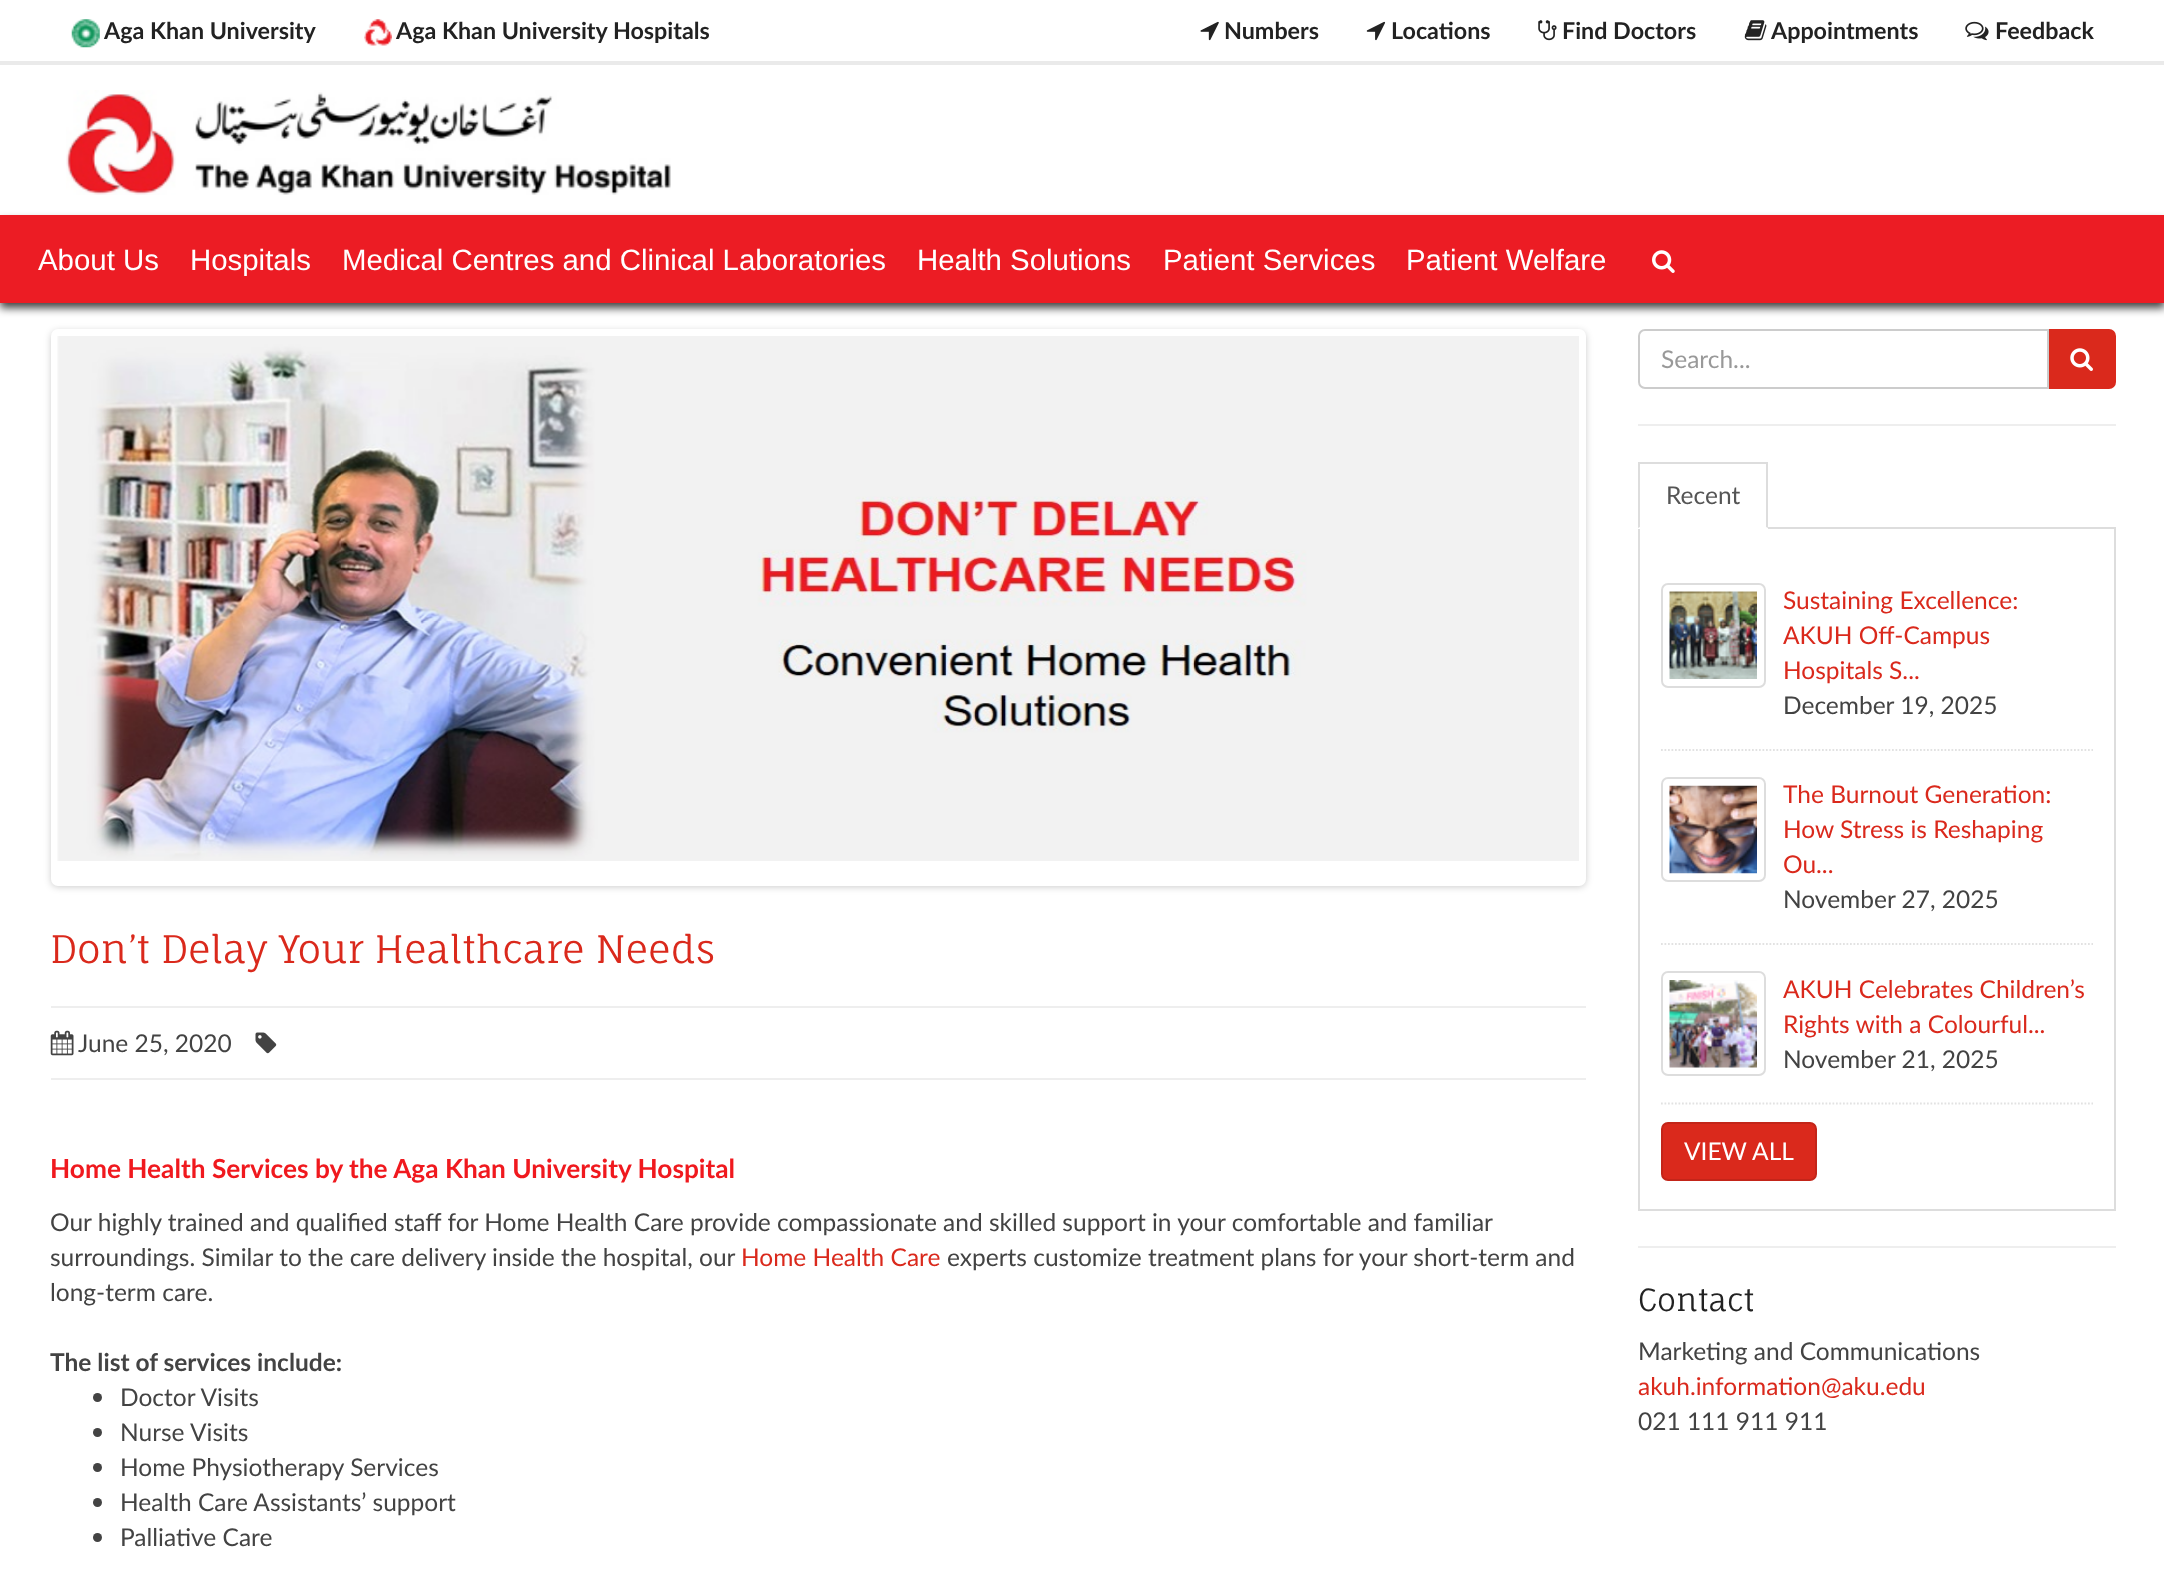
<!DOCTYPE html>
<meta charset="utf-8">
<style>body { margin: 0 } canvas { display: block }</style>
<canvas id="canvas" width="2164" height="1590"></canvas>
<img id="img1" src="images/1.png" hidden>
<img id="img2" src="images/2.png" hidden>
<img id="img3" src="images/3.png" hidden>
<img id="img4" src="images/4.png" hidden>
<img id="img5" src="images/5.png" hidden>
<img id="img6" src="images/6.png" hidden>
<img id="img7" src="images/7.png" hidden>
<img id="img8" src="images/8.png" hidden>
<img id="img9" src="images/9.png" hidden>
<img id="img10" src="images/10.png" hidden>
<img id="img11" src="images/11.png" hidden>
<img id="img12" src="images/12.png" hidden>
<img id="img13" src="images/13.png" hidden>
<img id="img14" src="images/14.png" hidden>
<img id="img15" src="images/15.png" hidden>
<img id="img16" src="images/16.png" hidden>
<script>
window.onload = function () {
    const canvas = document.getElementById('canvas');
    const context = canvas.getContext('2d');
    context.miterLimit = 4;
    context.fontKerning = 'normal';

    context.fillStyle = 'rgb(255, 255, 255)';
    context.fillRect(0, 0, 2164, 1590);
    context.fillStyle = 'rgb(234, 234, 234)';
    context.fillRect(0, 61, 2164, 4);
    context.drawImage(document.getElementById('img1'), 71, 19, 29, 29);
    context.drawImage(document.getElementById('img2'), 364, 19, 28, 27);
    context.drawImage(document.getElementById('img3'), 1200, 21, 19, 20);
    context.drawImage(document.getElementById('img4'), 1366, 21, 20, 20);
    context.drawImage(document.getElementById('img5'), 1538, 20, 19, 21);
    context.drawImage(document.getElementById('img6'), 1744, 20, 23, 21);
    context.drawImage(document.getElementById('img7'), 1965, 21, 24, 20);
    context.drawImage(document.getElementById('img8'), 66, 90, 605, 105);
    context.fillStyle = 'rgba(0, 0, 0, 0.75)';
    context.filter = 'blur(4.5px)';
    context.beginPath();
    context.rect(0, 221, 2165, 87);
    context.fill();
    context.filter = 'none';
    context.fillStyle = 'rgb(236, 28, 36)';
    context.fillRect(0, 215, 2164, 88);
    context.drawImage(document.getElementById('img9'), 1652, 250, 23, 23);
    context.fillStyle = 'rgba(0, 0, 0, 0.2)';
    context.filter = 'blur(3.5px)';
    context.beginPath();
    context.roundRect(51, 331, 1535, 556, 7);
    context.fill();
    context.filter = 'none';
    context.fillStyle = 'rgb(255, 255, 255)';
    context.beginPath();
    context.roundRect(54.5, 332.5, 1528, 550, 3.5);
    context.fill();
    context.strokeStyle = 'rgb(255, 255, 255)';
    context.lineWidth = 7;
    context.stroke();
    context.drawImage(document.getElementById('img10'), 57, 336, 1522, 525);
    context.fillStyle = 'rgb(238, 238, 238)';
    context.fillRect(51, 1006, 1535, 2);
    context.fillRect(51, 1078, 1535, 2);
    context.drawImage(document.getElementById('img11'), 50, 1030, 24, 26);
    context.drawImage(document.getElementById('img12'), 255, 1032, 22, 22);
    context.fillStyle = 'rgb(67, 67, 67)';
    context.beginPath();
    context.arc(97.5, 1397.5, 4.5, 0, 2 * Math.PI);
    context.fill();
    context.beginPath();
    context.arc(97.5, 1432.5, 4.5, 0, 2 * Math.PI);
    context.fill();
    context.beginPath();
    context.arc(97.5, 1467.5, 4.5, 0, 2 * Math.PI);
    context.fill();
    context.beginPath();
    context.arc(97.5, 1502.5, 4.5, 0, 2 * Math.PI);
    context.fill();
    context.beginPath();
    context.arc(97.5, 1537.5, 4.5, 0, 2 * Math.PI);
    context.fill();
    context.fillStyle = 'rgb(218, 41, 28)';
    context.beginPath();
    context.roundRect(2048, 329, 68, 60, [0, 7, 7, 0]);
    context.fill();
    context.fillStyle = 'rgb(255, 255, 255)';
    context.beginPath();
    context.roundRect(1639, 330, 409, 58, [6, 0, 0, 6]);
    context.fill();
    context.strokeStyle = 'rgb(204, 204, 204)';
    context.lineWidth = 2;
    context.stroke();
    context.drawImage(document.getElementById('img13'), 2070, 348, 23, 23);
    context.fillStyle = 'rgb(238, 238, 238)';
    context.fillRect(1638, 424, 478, 2);
    context.strokeStyle = 'rgb(221, 221, 221)';
    context.strokeRect(1639, 528, 476, 682);
    context.fillStyle = 'rgb(255, 255, 255)';
    context.fillRect(1638, 527, 130, 2);
    context.fillStyle = 'rgb(221, 221, 221)';
    context.fillRect(1638, 462, 130, 2);
    context.beginPath();
    context.moveTo(1768, 462);
    context.lineTo(1768, 528);
    context.lineTo(1766, 527);
    context.lineTo(1766, 464);
    context.closePath();
    context.fill();
    context.beginPath();
    context.moveTo(1638, 528);
    context.lineTo(1638, 462);
    context.lineTo(1640, 464);
    context.lineTo(1640, 527);
    context.closePath();
    context.fill();
    context.beginPath();
    context.moveTo(1661, 750);
    context.lineTo(2093, 750);
    context.strokeStyle = 'rgb(226, 226, 226)';
    context.lineWidth = 1.8;
    context.setLineDash([1.75, 1.75]);
    context.stroke();
    context.beginPath();
    context.roundRect(1662, 584, 103, 103, 6);
    context.strokeStyle = 'rgb(221, 221, 221)';
    context.lineWidth = 2;
    context.setLineDash([]);
    context.stroke();
    context.drawImage(document.getElementById('img14'), 1669, 591, 88, 88);
    context.beginPath();
    context.moveTo(1661, 944);
    context.lineTo(2093, 944);
    context.strokeStyle = 'rgb(226, 226, 226)';
    context.lineWidth = 1.8;
    context.setLineDash([1.75, 1.75]);
    context.stroke();
    context.beginPath();
    context.roundRect(1662, 778, 103, 103, 6);
    context.strokeStyle = 'rgb(221, 221, 221)';
    context.lineWidth = 2;
    context.setLineDash([]);
    context.stroke();
    context.drawImage(document.getElementById('img15'), 1669, 785, 88, 89);
    context.beginPath();
    context.moveTo(1661, 1103.5);
    context.lineTo(2093, 1103.5);
    context.strokeStyle = 'rgb(226, 226, 226)';
    context.lineWidth = 1.8;
    context.setLineDash([1.75, 1.75]);
    context.stroke();
    context.beginPath();
    context.roundRect(1662, 972, 103, 103, 6);
    context.strokeStyle = 'rgb(221, 221, 221)';
    context.lineWidth = 2;
    context.setLineDash([]);
    context.stroke();
    context.drawImage(document.getElementById('img16'), 1669, 980, 88, 88);
    context.fillStyle = 'rgb(218, 41, 28)';
    context.beginPath();
    context.roundRect(1662, 1123, 154, 57, 6);
    context.fill();
    context.strokeStyle = 'rgb(195, 37, 25)';
    context.stroke();
    context.fillStyle = 'rgb(238, 238, 238)';
    context.fillRect(1638, 1246, 478, 2);
    context.font = 'bold 23.3px Lato';
    context.fillStyle = 'rgb(34, 34, 34)';
    context.fillText('Aga Khan University', 104, 39);
    context.fillText('Aga Khan University Hospitals', 396, 39);
    context.fillText('Numbers', 1224, 39);
    context.fillText('Locations', 1391, 39);
    context.fillText('Find Doctors', 1562, 39);
    context.fillText('Appointments', 1771, 39);
    context.fillText('Feedback', 1995, 39);
    context.font = '29.4px Liberation Sans';
    context.fillStyle = 'rgb(255, 255, 255)';
    context.fillText('About Us', 38, 270);
    context.fillText('Hospitals', 190, 270);
    context.fillText('Medical Centres and Clinical Laboratories', 342, 270);
    context.fillText('Health Solutions', 917, 270);
    context.fillText('Patient Services', 1163, 270);
    context.fillText('Patient Welfare', 1406, 270);
    context.font = '38px Fauna One';
    context.fillStyle = 'rgb(218, 41, 28)';
    context.fillText('Don’t Delay Your Healthcare Needs', 50, 963);
    context.font = '24.5px Lato';
    context.fillStyle = 'rgb(67, 67, 67)';
    context.fillText('June 25, 2020', 78, 1052);
    context.font = 'bold 26.25px Lato';
    context.fillStyle = 'rgb(240, 25, 30)';
    context.fillText('Home Health Services by the Aga Khan University Hospital', 50, 1178);
    context.font = '24.5px Lato';
    context.fillStyle = 'rgb(67, 67, 67)';
    context.fillText('Our highly trained and qualified staff for Home Health Care provide compassionate and skilled support in your comfortable and familiar', 50, 1231);
    context.fillText('surroundings. Similar to the care delivery inside the hospital, our', 50, 1266);
    context.fillStyle = 'rgb(218, 41, 28)';
    context.fillText('Home Health Care', 741, 1266);
    context.fillStyle = 'rgb(67, 67, 67)';
    context.fillText('experts customize treatment plans for your short-term and', 947, 1266);
    context.fillText('long-term care.', 50, 1301);
    context.font = 'bold 24.5px Lato';
    context.fillText('The list of services include:', 50, 1371);
    context.font = '24.5px Lato';
    context.fillText('Doctor Visits', 120, 1406);
    context.fillText('Nurse Visits', 120, 1441);
    context.fillText('Home Physiotherapy Services', 120, 1476);
    context.fillText('Health Care Assistants’ support', 120, 1511);
    context.fillText('Palliative Care', 120, 1546);
    context.fillStyle = 'rgb(153, 153, 153)';
    context.fillText('Search...', 1661, 368);
    context.fillStyle = 'rgb(85, 85, 85)';
    context.fillText('Recent', 1666, 504);
    context.fillStyle = 'rgb(218, 41, 28)';
    context.fillText('Sustaining Excellence:', 1783, 609);
    context.fillText('AKUH Off-Campus', 1783, 644);
    context.fillText('Hospitals S...', 1783, 679);
    context.fillStyle = 'rgb(67, 67, 67)';
    context.fillText('December 19, 2025', 1783, 714);
    context.fillStyle = 'rgb(218, 41, 28)';
    context.fillText('The Burnout Generation:', 1783, 803);
    context.fillText('How Stress is Reshaping', 1783, 838);
    context.fillText('Ou...', 1783, 873);
    context.fillStyle = 'rgb(67, 67, 67)';
    context.fillText('November 27, 2025', 1783, 908);
    context.fillStyle = 'rgb(218, 41, 28)';
    context.fillText('AKUH Celebrates Children’s', 1783, 998);
    context.fillText('Rights with a Colourful...', 1783, 1033);
    context.fillStyle = 'rgb(67, 67, 67)';
    context.fillText('November 21, 2025', 1783, 1068);
    context.fillStyle = 'rgb(255, 255, 255)';
    context.fillText('VIEW ALL', 1684, 1160);
    context.font = '30.5px Fauna One';
    context.fillStyle = 'rgb(34, 34, 34)';
    context.fillText('Contact', 1638, 1311);
    context.font = '24.5px Lato';
    context.fillStyle = 'rgb(67, 67, 67)';
    context.fillText('Marketing and Communications', 1638, 1360);
    context.fillStyle = 'rgb(218, 41, 28)';
    context.fillText('akuh.information@aku.edu', 1638, 1395);
    context.fillStyle = 'rgb(67, 67, 67)';
    context.fillText('021 111 911 911', 1638, 1430);
};
</script>
